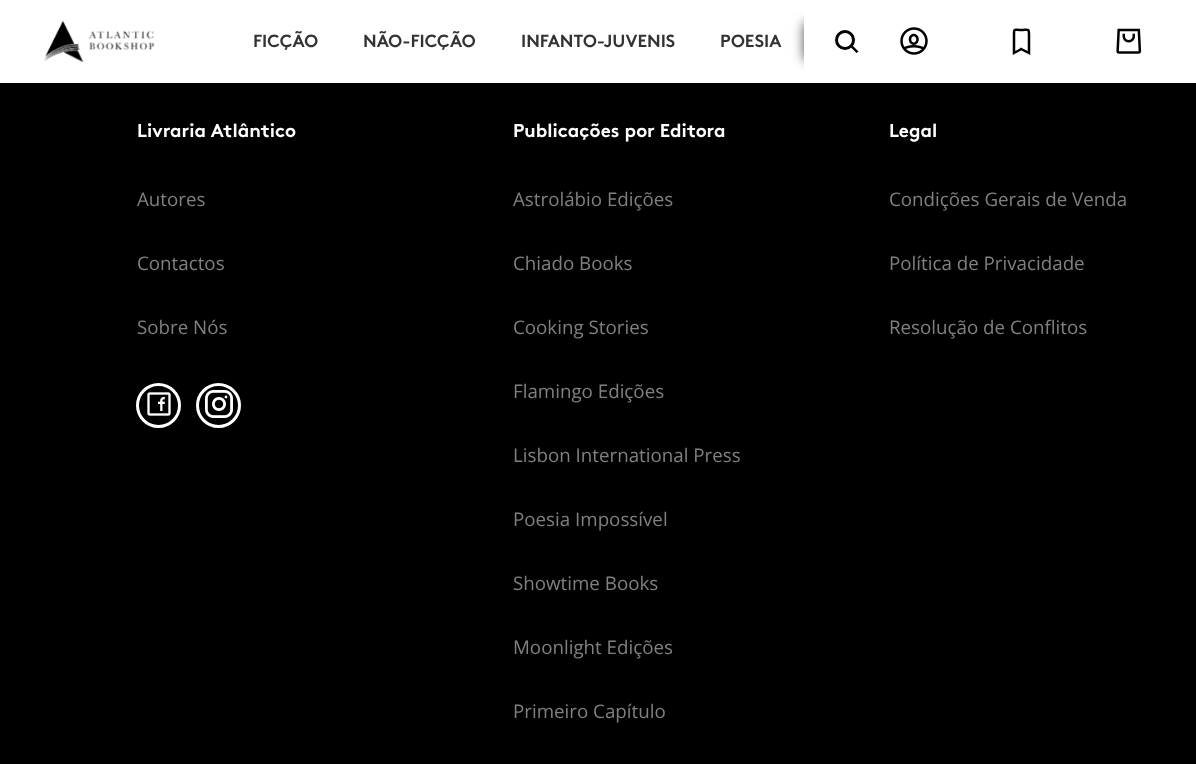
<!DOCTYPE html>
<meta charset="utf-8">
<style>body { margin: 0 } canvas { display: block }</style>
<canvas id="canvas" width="1196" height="764"></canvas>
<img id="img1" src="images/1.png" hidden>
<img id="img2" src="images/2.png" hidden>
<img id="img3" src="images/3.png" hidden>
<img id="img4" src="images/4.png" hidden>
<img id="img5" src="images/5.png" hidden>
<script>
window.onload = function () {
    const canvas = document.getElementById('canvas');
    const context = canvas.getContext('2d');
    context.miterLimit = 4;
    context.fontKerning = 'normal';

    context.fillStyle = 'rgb(0, 0, 0)';
    context.fillRect(0, 0, 1196, 764);
    context.fillStyle = 'rgb(255, 255, 255)';
    context.fillRect(0, 0, 1196, 83);
    context.drawImage(document.getElementById('img1'), 44, 20, 111, 42);
    context.save();
    context.beginPath();
    context.rect(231, 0, 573, 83);
    context.clip();
    context.fillStyle = 'rgba(0, 0, 0, 0.7)';
    context.filter = 'blur(6px)';
    context.beginPath();
    context.rect(804, 23, 31, 37);
    context.fill();
    context.filter = 'none';
    context.restore();
    context.beginPath();
    context.arc(845, 40, 8.5, 0, 2 * Math.PI);
    context.strokeStyle = 'rgb(0, 0, 0)';
    context.lineWidth = 3;
    context.stroke();
    context.fillStyle = 'rgb(0, 0, 0)';
    context.beginPath();
    context.moveTo(851.5, 44.5);
    context.lineTo(858.5, 51.5);
    context.lineTo(856.5, 53);
    context.lineTo(849.5, 46);
    context.closePath();
    context.fill();
    context.drawImage(document.getElementById('img2'), 900, 27, 28, 28);
    context.beginPath();
    context.moveTo(1020.5, 49.5);
    context.lineTo(1014, 53);
    context.lineTo(1014, 35);
    context.bezierCurveTo(1014, 28, 1014, 30, 1021, 30);
    context.bezierCurveTo(1028.5, 30, 1029, 28, 1029, 35);
    context.lineTo(1029, 53);
    context.lineTo(1021, 49);
    context.closePath();
    context.lineWidth = 2.5;
    context.stroke();
    context.drawImage(document.getElementById('img3'), 1116, 28, 26, 26);
    context.drawImage(document.getElementById('img4'), 147, 392, 24, 24);
    context.beginPath();
    context.arc(158.5, 405.5, 21, 0, 2 * Math.PI);
    context.strokeStyle = 'rgb(255, 255, 255)';
    context.lineWidth = 3;
    context.stroke();
    context.drawImage(document.getElementById('img5'), 205, 390, 28, 28);
    context.beginPath();
    context.arc(218.5, 405.5, 21, 0, 2 * Math.PI);
    context.stroke();
    context.font = 'bold 17.5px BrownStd';
    context.fillStyle = 'rgb(51, 51, 51)';
    context.fillText('FICÇÃO', 253, 47);
    context.fillText('NÃO-FICÇÃO', 363, 47);
    context.fillText('INFANTO-JUVENIS', 521, 47);
    context.fillText('POESIA', 720, 47);
    context.font = 'bold 18.75px BrownStd';
    context.fillStyle = 'rgb(255, 255, 255)';
    context.fillText('Livraria Atlântico', 137, 137);
    context.font = '18.75px Open Sans';
    context.fillStyle = 'rgb(128, 128, 128)';
    context.fillText('Autores', 137, 206);
    context.fillText('Contactos', 137, 270);
    context.fillText('Sobre Nós', 137, 334);
    context.font = 'bold 18.75px BrownStd';
    context.fillStyle = 'rgb(255, 255, 255)';
    context.fillText('Publicações por Editora', 513, 137);
    context.font = '18.75px Open Sans';
    context.fillStyle = 'rgb(128, 128, 128)';
    context.fillText('Astrolábio Edições', 513, 206);
    context.fillText('Chiado Books', 513, 270);
    context.fillText('Cooking Stories', 513, 334);
    context.fillText('Flamingo Edições', 513, 398);
    context.fillText('Lisbon International Press', 513, 462);
    context.fillText('Poesia Impossível', 513, 526);
    context.fillText('Showtime Books', 513, 590);
    context.fillText('Moonlight Edições', 513, 654);
    context.fillText('Primeiro Capítulo', 513, 718);
    context.font = 'bold 18.75px BrownStd';
    context.fillStyle = 'rgb(255, 255, 255)';
    context.fillText('Legal', 889, 137);
    context.font = '18.75px Open Sans';
    context.fillStyle = 'rgb(128, 128, 128)';
    context.fillText('Condições Gerais de Venda', 889, 206);
    context.fillText('Política de Privacidade', 889, 270);
    context.fillText('Resolução de Conflitos', 889, 334);
};
</script>
